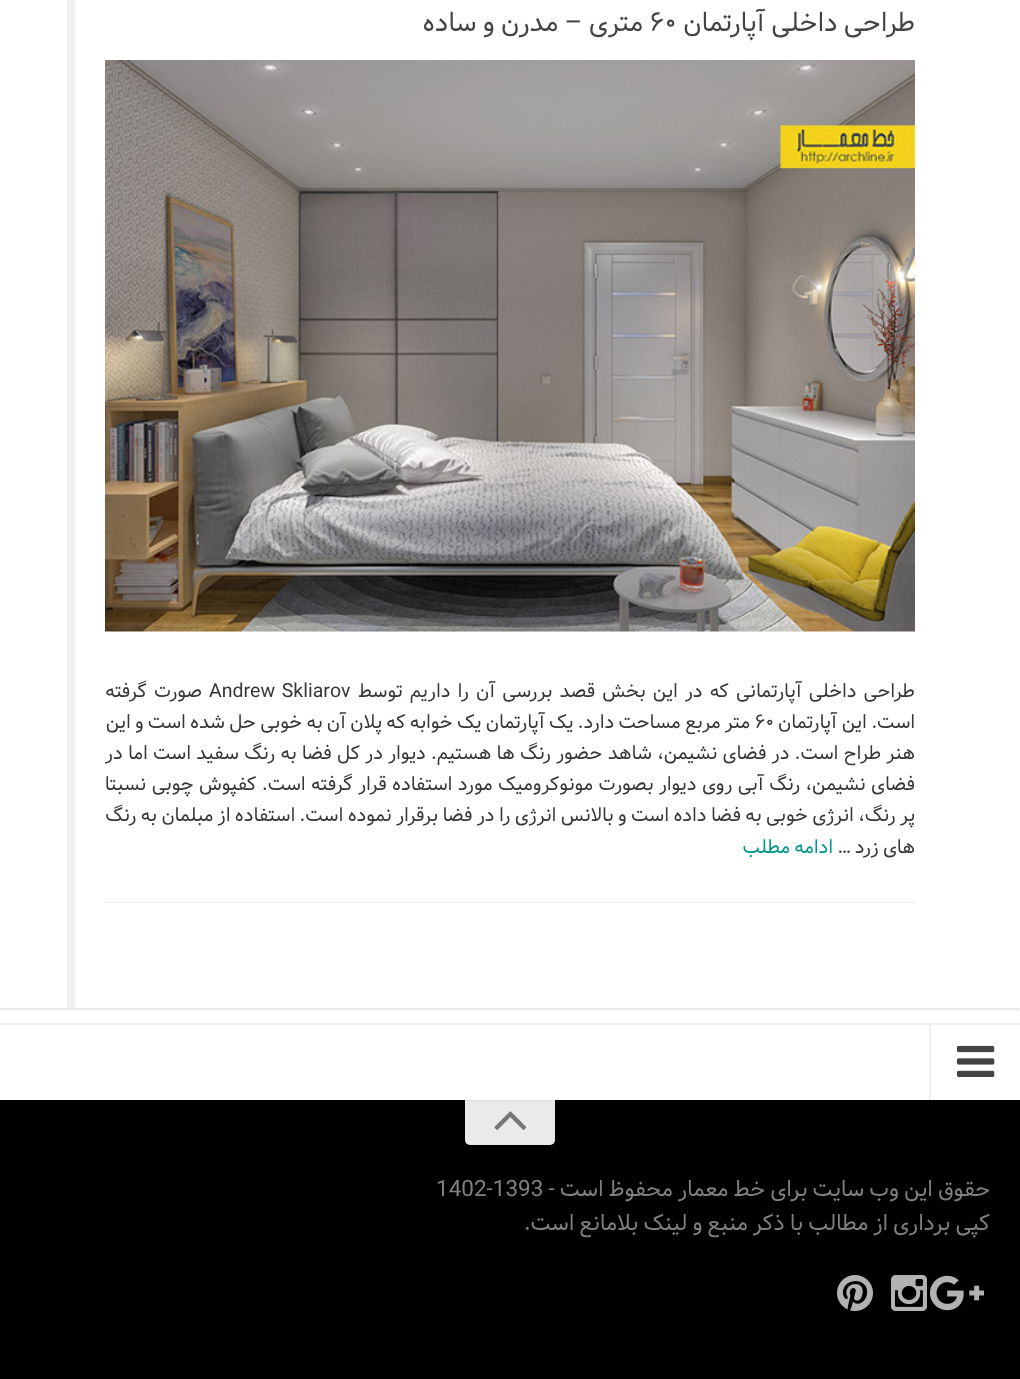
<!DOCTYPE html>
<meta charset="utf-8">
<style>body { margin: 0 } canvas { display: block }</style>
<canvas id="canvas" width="1020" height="1379"></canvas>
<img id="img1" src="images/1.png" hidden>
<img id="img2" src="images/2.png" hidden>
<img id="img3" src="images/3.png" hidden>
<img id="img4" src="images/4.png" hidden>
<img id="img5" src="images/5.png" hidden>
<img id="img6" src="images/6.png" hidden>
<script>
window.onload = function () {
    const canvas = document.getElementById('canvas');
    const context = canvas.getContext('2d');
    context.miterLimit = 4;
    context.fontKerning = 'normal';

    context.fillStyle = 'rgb(255, 255, 255)';
    context.fillRect(0, 0, 1020, 1379);
    context.save();
    context.beginPath();
    context.rect(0, 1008, 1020, 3);
    context.clip();
    context.fillStyle = 'rgba(0, 0, 0, 0.1)';
    context.filter = 'blur(1px)';
    context.beginPath();
    context.rect(0, -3, 1020, 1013);
    context.fill();
    context.filter = 'none';
    context.restore();
    context.fillStyle = 'rgb(240, 240, 240)';
    context.fillRect(67, 0, 8, 1008);
    context.fillStyle = 'rgb(238, 238, 238)';
    context.fillRect(105, 902, 810, 1);
    context.drawImage(document.getElementById('img1'), 105, 60, 810, 572);
    context.fillRect(0, 1023, 1020, 2);
    context.fillRect(929, 1025, 2, 75);
    context.drawImage(document.getElementById('img2'), 957, 1045, 38, 32);
    context.fillStyle = 'rgb(0, 0, 0)';
    context.fillRect(0, 1100, 1020, 279);
    context.fillStyle = 'rgb(234, 234, 234)';
    context.beginPath();
    context.roundRect(465, 1100, 90, 45, [0, 0, 5, 5]);
    context.fill();
    context.fillStyle = 'rgb(222, 222, 222)';
    context.fillRect(465, 1100, 90, 1);
    context.drawImage(document.getElementById('img3'), 494, 1111, 33, 19);
    context.drawImage(document.getElementById('img4'), 930, 1275, 54, 36);
    context.drawImage(document.getElementById('img5'), 891, 1275, 36, 36);
    context.drawImage(document.getElementById('img6'), 837, 1275, 36, 36);
    context.save();
    context.beginPath();
    context.rect(105, 0, 810, 903);
    context.clip();
    context.wordSpacing = '-1.5px';
    context.direction = 'rtl';
    context.font = '27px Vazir';
    context.fillStyle = 'rgb(68, 68, 68)';
    context.fillText('طراحی داخلی آپارتمان', 915, 31);
    context.restore();
    context.font = '27px Vazir';
    context.fillStyle = 'rgb(68, 68, 68)';
    context.fillText('۶۰', 650, 31);
    context.wordSpacing = '-1.5px';
    context.direction = 'rtl';
    context.fillText('متری – مدرن و ساده', 643, 31);
    context.wordSpacing = '1.4px';
    context.font = '19.5px Vazir';
    context.fillStyle = 'rgb(55, 55, 53)';
    context.fillText('طراحی داخلی آپارتمانی که در این بخش قصد بررسی آن را داریم توسط', 915, 697);
    context.wordSpacing = '1px';
    context.direction = 'ltr';
    context.fillText('Andrew Skliarov', 209, 697);
    context.wordSpacing = '1.4px';
    context.direction = 'rtl';
    context.fillText('صورت گرفته', 202, 697);
    context.save();
    context.beginPath();
    context.rect(105, 0, 810, 903);
    context.clip();
    context.wordSpacing = '-1px';
    context.fillText('است. این آپارتمان', 915, 728);
    context.restore();
    context.wordSpacing = '-1.4px';
    context.fillText('متر مربع مساحت دارد. یک آپارتمان یک خوابه که پلان آن به خوبی حل شده است و این', 750, 728);
    context.wordSpacing = '0px';
    context.direction = 'ltr';
    context.fillText('۶۰', 755, 728);
    context.save();
    context.beginPath();
    context.rect(105, 0, 810, 903);
    context.clip();
    context.wordSpacing = '-0.4px';
    context.direction = 'rtl';
    context.fillText('هنر طراح است. در فضای نشیمن، شاهد حضور رنگ ها هستیم. دیوار در کل فضا به رنگ سفید است اما در', 915, 759);
    context.wordSpacing = '-0.25px';
    context.fillText('فضای نشیمن، رنگ آبی روی دیوار بصورت مونوکرومیک مورد استفاده قرار گرفته است. کفپوش چوبی نسبتا', 915, 790);
    context.wordSpacing = '-1.25px';
    context.fillText('پر رنگ، انرژی خوبی به فضا داده است و بالانس انرژی را در فضا برقرار نموده است. استفاده از مبلمان به رنگ', 915, 821);
    context.wordSpacing = '-1.5px';
    context.fillText('های زرد …', 915, 853);
    context.restore();
    context.wordSpacing = '-1.5px';
    context.direction = 'rtl';
    context.fillStyle = 'rgb(0, 150, 138)';
    context.fillText('ادامه مطلب', 833, 853);
    context.font = '22.5px Vazir';
    context.fillStyle = 'rgb(128, 128, 128)';
    context.fillText('حقوق این وب سایت برای خط معمار محفوظ است -', 990, 1196);
    context.wordSpacing = '0px';
    context.direction = 'ltr';
    context.fillText('1402-1393', 436, 1196);
    context.wordSpacing = '-1.5px';
    context.direction = 'rtl';
    context.fillText('کپی برداری از مطالب با ذکر منبع و لینک بلامانع است.', 990, 1230);
};
</script>
